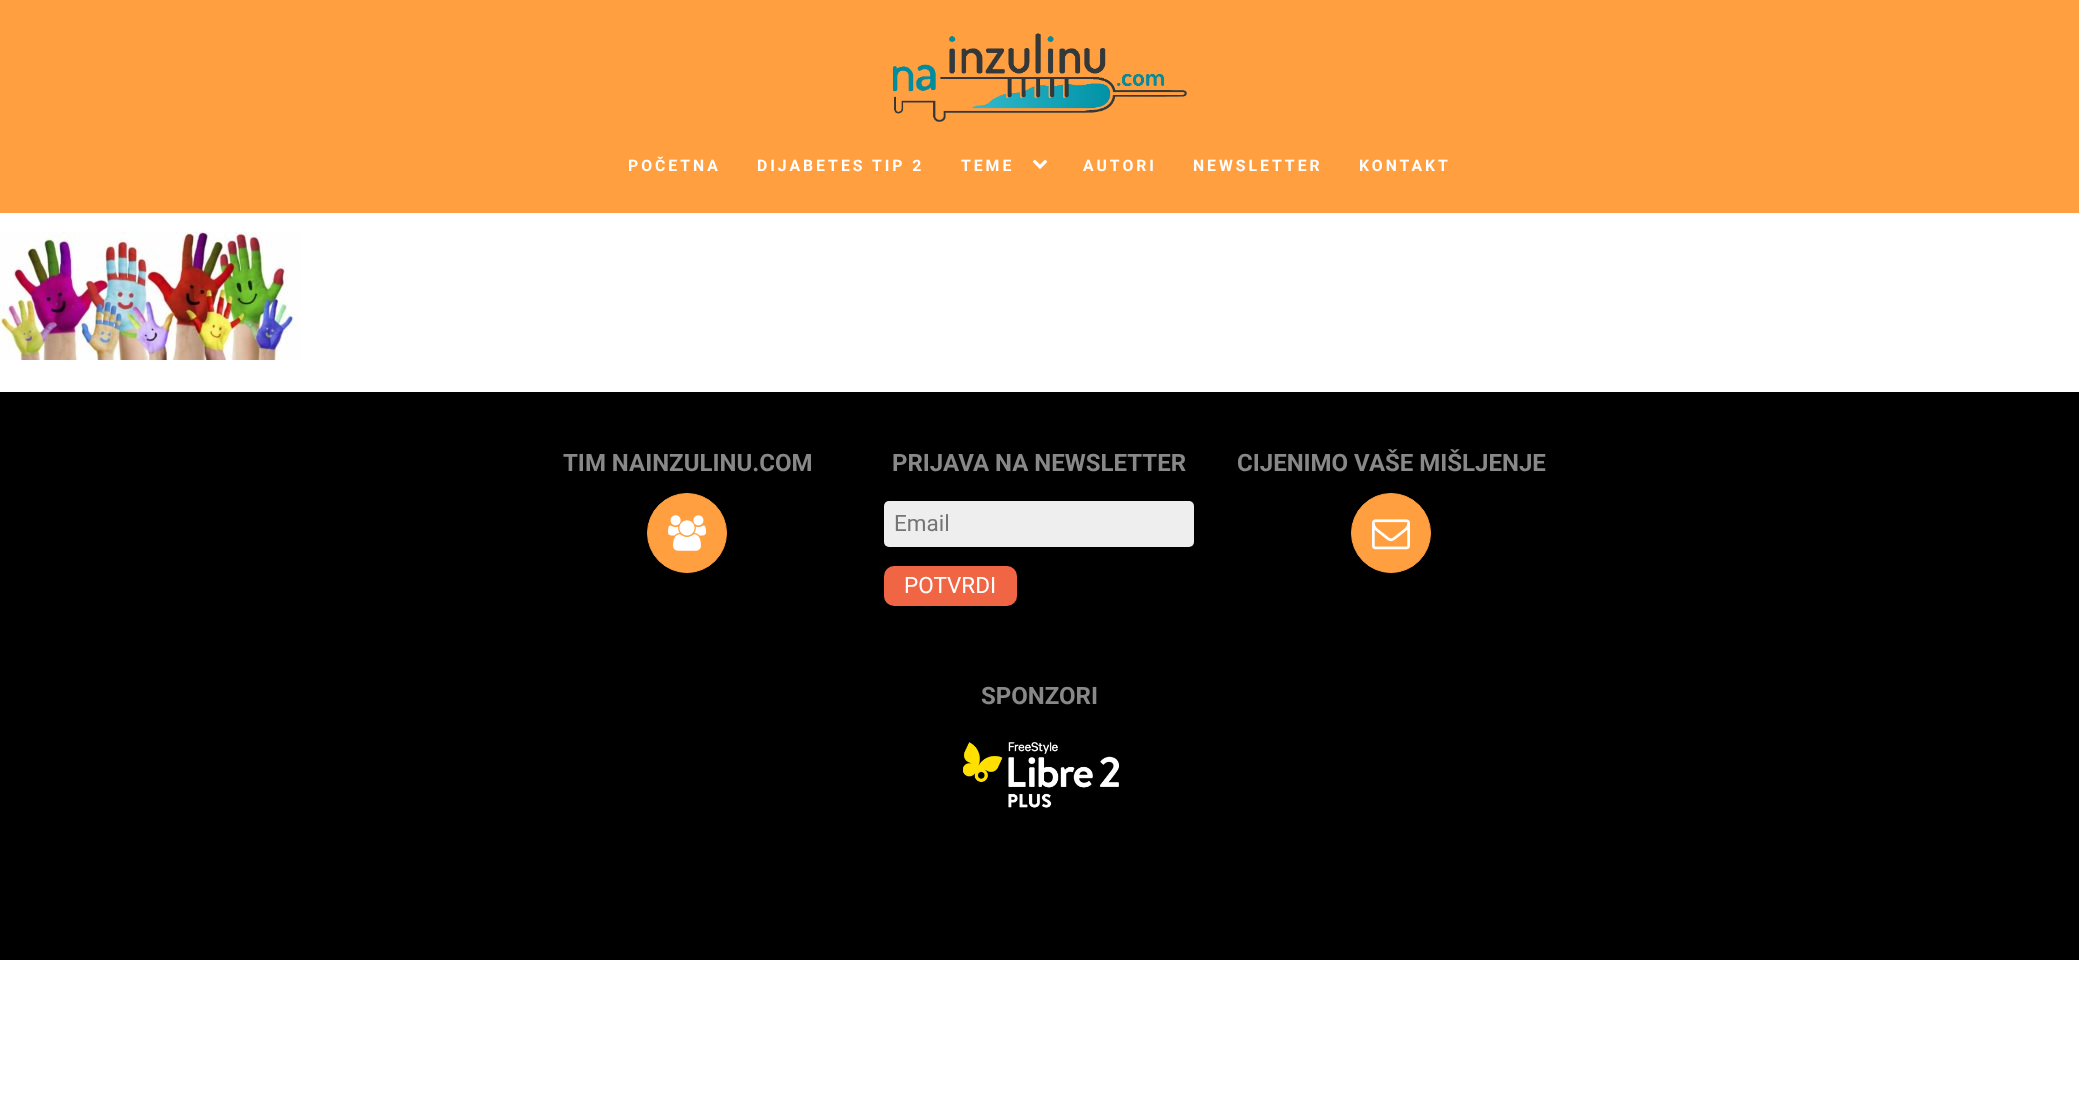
<!DOCTYPE html>
<meta charset="utf-8">
<style>body { margin: 0 } canvas { display: block }</style>
<canvas id="canvas" width="2079" height="1116"></canvas>
<img id="img1" src="images/1.png" hidden>
<img id="img2" src="images/2.png" hidden>
<img id="img3" src="images/3.png" hidden>
<img id="img4" src="images/4.png" hidden>
<img id="img5" src="images/5.png" hidden>
<img id="img6" src="images/6.png" hidden>
<script>
window.onload = function () {
    const canvas = document.getElementById('canvas');
    const context = canvas.getContext('2d');
    context.miterLimit = 4;
    context.fontKerning = 'normal';

    context.fillStyle = 'rgb(255, 255, 255)';
    context.fillRect(0, 0, 2079, 1116);
    context.fillStyle = 'rgb(255, 159, 64)';
    context.fillRect(0, 0, 2079, 213);
    context.drawImage(document.getElementById('img1'), 893, 33, 294, 89);
    context.drawImage(document.getElementById('img2'), 1032, 159, 16, 10);
    context.drawImage(document.getElementById('img3'), 0, 232, 300, 128);
    context.fillStyle = 'rgb(0, 0, 0)';
    context.fillRect(0, 392, 2079, 568);
    context.fillStyle = 'rgb(255, 159, 64)';
    context.beginPath();
    context.arc(687, 533, 39.5, 0, 2 * Math.PI);
    context.fill();
    context.strokeStyle = 'rgb(255, 159, 64)';
    context.stroke();
    context.drawImage(document.getElementById('img4'), 668, 515, 38, 36);
    context.fillStyle = 'rgb(238, 238, 238)';
    context.beginPath();
    context.roundRect(884, 501, 310, 46, 5);
    context.fill();
    context.fillStyle = 'rgb(240, 101, 68)';
    context.beginPath();
    context.roundRect(884, 566, 133, 40, 10);
    context.fill();
    context.fillStyle = 'rgb(255, 159, 64)';
    context.beginPath();
    context.arc(1391, 533, 39.5, 0, 2 * Math.PI);
    context.fill();
    context.stroke();
    context.drawImage(document.getElementById('img5'), 1372, 519, 38, 31);
    context.drawImage(document.getElementById('img6'), 963, 742, 156, 66);
    context.letterSpacing = '3px';
    context.font = 'bold 15.75px Roboto';
    context.fillStyle = 'rgb(255, 255, 255)';
    context.fillText('POČETNA', 628, 171);
    context.fillText('DIJABETES TIP 2', 757, 171);
    context.fillText('TEME', 961, 171);
    context.fillText('AUTORI', 1083, 171);
    context.fillText('NEWSLETTER', 1193, 171);
    context.fillText('KONTAKT', 1359, 171);
    context.letterSpacing = '0px';
    context.font = 'bold 24px Roboto';
    context.fillStyle = 'rgb(136, 136, 136)';
    context.fillText('TIM NAINZULINU.COM', 563, 471);
    context.fillText('PRIJAVA NA NEWSLETTER', 892, 471);
    context.font = '22.5px Roboto';
    context.fillStyle = 'rgb(117, 117, 117)';
    context.fillText('Email', 894, 531);
    context.fillStyle = 'rgb(255, 255, 255)';
    context.fillText('POTVRDI', 904, 593);
    context.font = 'bold 24px Roboto';
    context.fillStyle = 'rgb(136, 136, 136)';
    context.fillText('CIJENIMO VAŠE MIŠLJENJE', 1237, 471);
    context.fillText('SPONZORI', 981, 704);
};
</script>
